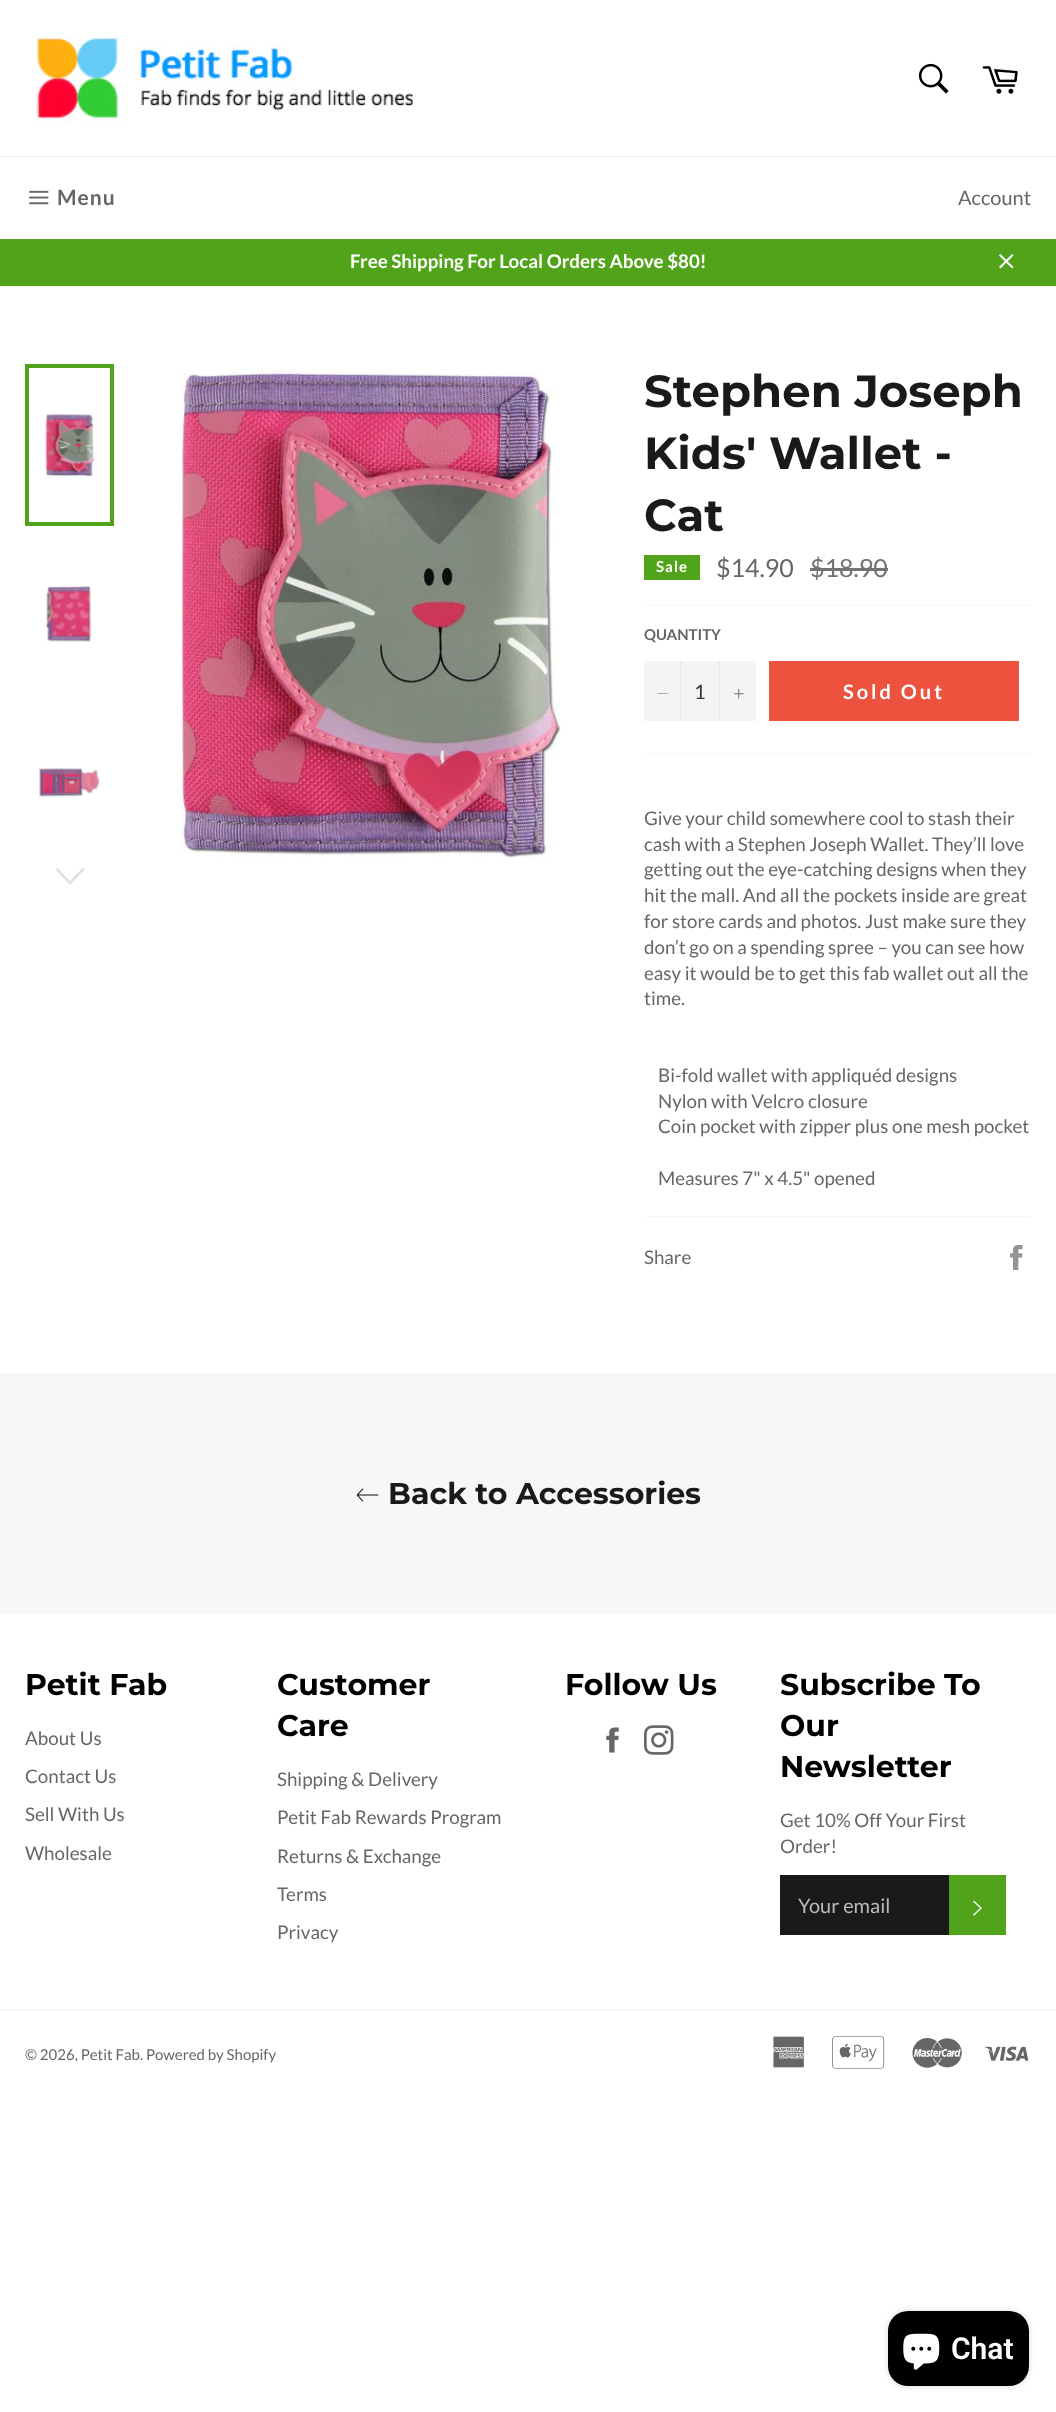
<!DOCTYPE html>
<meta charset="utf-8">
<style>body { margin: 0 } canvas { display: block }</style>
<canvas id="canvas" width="1056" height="2412"></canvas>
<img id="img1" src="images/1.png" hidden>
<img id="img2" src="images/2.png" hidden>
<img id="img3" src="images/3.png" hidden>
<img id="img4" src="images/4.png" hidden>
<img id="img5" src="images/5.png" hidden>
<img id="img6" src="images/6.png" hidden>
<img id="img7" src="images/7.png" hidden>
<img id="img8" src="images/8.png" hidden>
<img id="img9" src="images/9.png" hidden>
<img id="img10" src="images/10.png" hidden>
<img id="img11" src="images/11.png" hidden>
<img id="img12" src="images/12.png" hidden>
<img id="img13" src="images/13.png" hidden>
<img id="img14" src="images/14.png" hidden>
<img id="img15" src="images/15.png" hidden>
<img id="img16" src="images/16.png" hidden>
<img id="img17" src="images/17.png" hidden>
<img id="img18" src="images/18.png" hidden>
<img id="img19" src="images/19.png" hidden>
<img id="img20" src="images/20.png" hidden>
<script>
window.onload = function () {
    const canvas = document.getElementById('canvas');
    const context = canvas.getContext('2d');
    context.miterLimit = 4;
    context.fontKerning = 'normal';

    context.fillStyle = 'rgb(255, 255, 255)';
    context.fillRect(0, 0, 1056, 2412);
    context.drawImage(document.getElementById('img1'), 35, 35, 378, 89);
    context.drawImage(document.getElementById('img2'), 918, 63, 31, 31);
    context.drawImage(document.getElementById('img3'), 982, 66, 36, 28);
    context.fillStyle = 'rgb(242, 242, 242)';
    context.fillRect(0, 156, 1056, 1);
    context.drawImage(document.getElementById('img4'), 29, 190, 20, 15);
    context.fillStyle = 'rgb(81, 164, 25)';
    context.fillRect(0, 239, 1056, 47);
    context.drawImage(document.getElementById('img5'), 999, 254, 15, 15);
    context.drawImage(document.getElementById('img6'), 45, 414, 50, 63);
    context.strokeStyle = 'rgb(81, 164, 25)';
    context.lineWidth = 4;
    context.strokeRect(27, 366, 85, 158);
    context.drawImage(document.getElementById('img7'), 45, 586, 47, 56);
    context.drawImage(document.getElementById('img8'), 39, 768, 61, 30);
    context.fillStyle = 'rgb(224, 224, 224)';
    context.beginPath();
    context.moveTo(83, 867.5);
    context.lineTo(84.5, 869.5);
    context.lineTo(70, 885);
    context.lineTo(55.5, 869.5);
    context.lineTo(57, 867.5);
    context.lineTo(70, 881);
    context.closePath();
    context.fill();
    context.drawImage(document.getElementById('img9'), 181, 368, 380, 491);
    context.fillStyle = 'rgb(81, 164, 25)';
    context.fillRect(644, 555, 56, 25);
    context.fillStyle = 'rgb(115, 115, 115)';
    context.fillRect(810, 568, 78, 3);
    context.fillStyle = 'rgb(247, 247, 247)';
    context.fillRect(644, 605, 387, 1);
    context.fillStyle = 'rgb(244, 244, 244)';
    context.fillRect(644, 661, 112, 60);
    context.fillStyle = 'rgb(231, 231, 231)';
    context.fillRect(680, 661, 1, 60);
    context.fillStyle = 'rgb(102, 102, 102)';
    context.beginPath();
    context.moveTo(667.5, 693.5);
    context.lineTo(667.5, 694);
    context.lineTo(657.5, 694);
    context.lineTo(657.5, 693.5);
    context.closePath();
    context.fill('evenodd');
    context.fillStyle = 'rgb(231, 231, 231)';
    context.fillRect(719, 661, 1, 60);
    context.drawImage(document.getElementById('img10'), 734, 689, 10, 10);
    context.fillStyle = 'rgb(236, 82, 62)';
    context.fillRect(769, 661, 250, 60);
    context.fillStyle = 'rgb(247, 247, 247)';
    context.fillRect(644, 753, 387, 1);
    context.fillRect(644, 1216, 387, 1);
    context.drawImage(document.getElementById('img11'), 1010, 1245, 13, 25);
    context.fillRect(0, 1373, 1056, 241);
    context.drawImage(document.getElementById('img12'), 356, 1488, 23, 14);
    context.drawImage(document.getElementById('img13'), 606, 1727, 13, 26);
    context.drawImage(document.getElementById('img14'), 644, 1725, 30, 30);
    context.fillStyle = 'rgb(26, 26, 26)';
    context.fillRect(780, 1875, 169, 60);
    context.fillStyle = 'rgb(81, 164, 25)';
    context.fillRect(949, 1875, 57, 60);
    context.drawImage(document.getElementById('img15'), 973, 1900, 9, 16);
    context.fillStyle = 'rgb(242, 242, 242)';
    context.fillRect(0, 2010, 1056, 1);
    context.drawImage(document.getElementById('img16'), 773, 2036, 31, 32);
    context.drawImage(document.getElementById('img17'), 832, 2036, 53, 33);
    context.drawImage(document.getElementById('img18'), 912, 2038, 50, 30);
    context.drawImage(document.getElementById('img19'), 984, 2046, 45, 15);
    context.fillStyle = 'rgba(0, 0, 0, 0.15)';
    context.filter = 'blur(3px)';
    context.beginPath();
    context.roundRect(888, 2311, 141, 75, 20);
    context.fill();
    context.filter = 'none';
    context.fillStyle = 'rgb(0, 0, 0)';
    context.beginPath();
    context.roundRect(888, 2311, 141, 75, 20);
    context.fill();
    context.drawImage(document.getElementById('img20'), 903, 2333, 37, 37);
    context.letterSpacing = '1px';
    context.font = 'bold 21px Lato';
    context.fillStyle = 'rgb(102, 102, 102)';
    context.fillText('Menu', 57, 205);
    context.letterSpacing = '0px';
    context.font = '20px Lato';
    context.fillText('Account', 958, 205);
    context.font = 'bold 18.75px Lato';
    context.fillStyle = 'rgb(255, 255, 255)';
    context.fillText('Free Shipping For Local Orders Above $80!', 350, 268);
    context.font = 'bold 45px Montserrat';
    context.fillStyle = 'rgb(26, 26, 26)';
    context.fillText('Stephen Joseph', 644, 407);
    context.fillText('Kids\' Wallet -', 644, 469);
    context.fillText('Cat', 644, 531);
    context.letterSpacing = '1px';
    context.font = 'bold 15px Lato';
    context.fillStyle = 'rgb(255, 255, 255)';
    context.fillText('Sale', 656, 572);
    context.letterSpacing = '0px';
    context.font = '25px Lato';
    context.fillStyle = 'rgb(102, 102, 102)';
    context.fillText('$14.90', 716, 577);
    context.fillStyle = 'rgb(115, 115, 115)';
    context.fillText('$18.90', 810, 577);
    context.font = 'bold 15px Lato';
    context.fillStyle = 'rgb(102, 102, 102)';
    context.fillText('QUANTITY', 644, 640);
    context.font = '20px Lato';
    context.fillStyle = 'rgb(51, 51, 51)';
    context.fillText('1', 694, 699);
    context.letterSpacing = '3px';
    context.font = 'bold 20px Lato';
    context.fillStyle = 'rgb(255, 255, 255)';
    context.fillText('Sold Out', 843, 699);
    context.letterSpacing = '0px';
    context.font = '18.75px Lato';
    context.fillStyle = 'rgb(102, 102, 102)';
    context.fillText('Give your child somewhere cool to stash their', 644, 825);
    context.fillText('cash with a Stephen Joseph Wallet. They’ll love', 644, 851);
    context.fillText('getting out the eye-catching designs when they', 644, 876);
    context.fillText('hit the mall. And all the pockets inside are great', 644, 902);
    context.fillText('for store cards and photos. Just make sure they', 644, 928);
    context.fillText('don’t go on a spending spree – you can see how', 644, 954);
    context.fillText('easy it would be to get this fab wallet out all the', 644, 980);
    context.fillText('time.', 644, 1005);
    context.fillText('Bi-fold wallet with appliquéd designs', 658, 1082);
    context.fillText('Nylon with Velcro closure', 658, 1108);
    context.fillText('Coin pocket with zipper plus one mesh pocket', 658, 1133);
    context.fillText('Measures 7" x 4.5" opened', 658, 1185);
    context.fillText('Share', 644, 1264);
    context.font = 'bold 30px Montserrat';
    context.fillStyle = 'rgb(26, 26, 26)';
    context.fillText('Back to Accessories', 388, 1504);
    context.fillStyle = 'rgb(0, 0, 0)';
    context.fillText('Petit Fab', 25, 1695);
    context.font = '18.75px Lato';
    context.fillStyle = 'rgb(102, 102, 102)';
    context.fillText('About Us', 25, 1745);
    context.fillText('Contact Us', 25, 1783);
    context.fillText('Sell With Us', 25, 1821);
    context.fillText('Wholesale', 25, 1860);
    context.font = 'bold 30px Montserrat';
    context.fillStyle = 'rgb(0, 0, 0)';
    context.fillText('Customer', 277, 1695);
    context.fillText('Care', 277, 1736);
    context.font = '18.75px Lato';
    context.fillStyle = 'rgb(102, 102, 102)';
    context.fillText('Shipping & Delivery', 277, 1786);
    context.fillText('Petit Fab Rewards Program', 277, 1824);
    context.fillText('Returns & Exchange', 277, 1863);
    context.fillText('Terms', 277, 1901);
    context.fillText('Privacy', 277, 1939);
    context.font = 'bold 30px Montserrat';
    context.fillStyle = 'rgb(0, 0, 0)';
    context.fillText('Follow Us', 565, 1695);
    context.fillText('Subscribe To', 780, 1695);
    context.fillText('Our', 780, 1736);
    context.fillText('Newsletter', 780, 1777);
    context.font = '18.75px Lato';
    context.fillStyle = 'rgb(102, 102, 102)';
    context.fillText('Get 10% Off Your First', 780, 1827);
    context.fillText('Order!', 780, 1853);
    context.font = '20px Lato';
    context.fillStyle = 'rgb(186, 186, 186)';
    context.fillText('Your email', 798, 1913);
    context.font = '15px Lato';
    context.fillStyle = 'rgb(102, 102, 102)';
    context.fillText('© 2026, Petit Fab. Powered by Shopify', 25, 2060);
    context.font = '600 30px Roboto';
    context.fillStyle = 'rgb(255, 255, 255)';
    context.fillText('Chat', 951, 2359);
};
</script>
